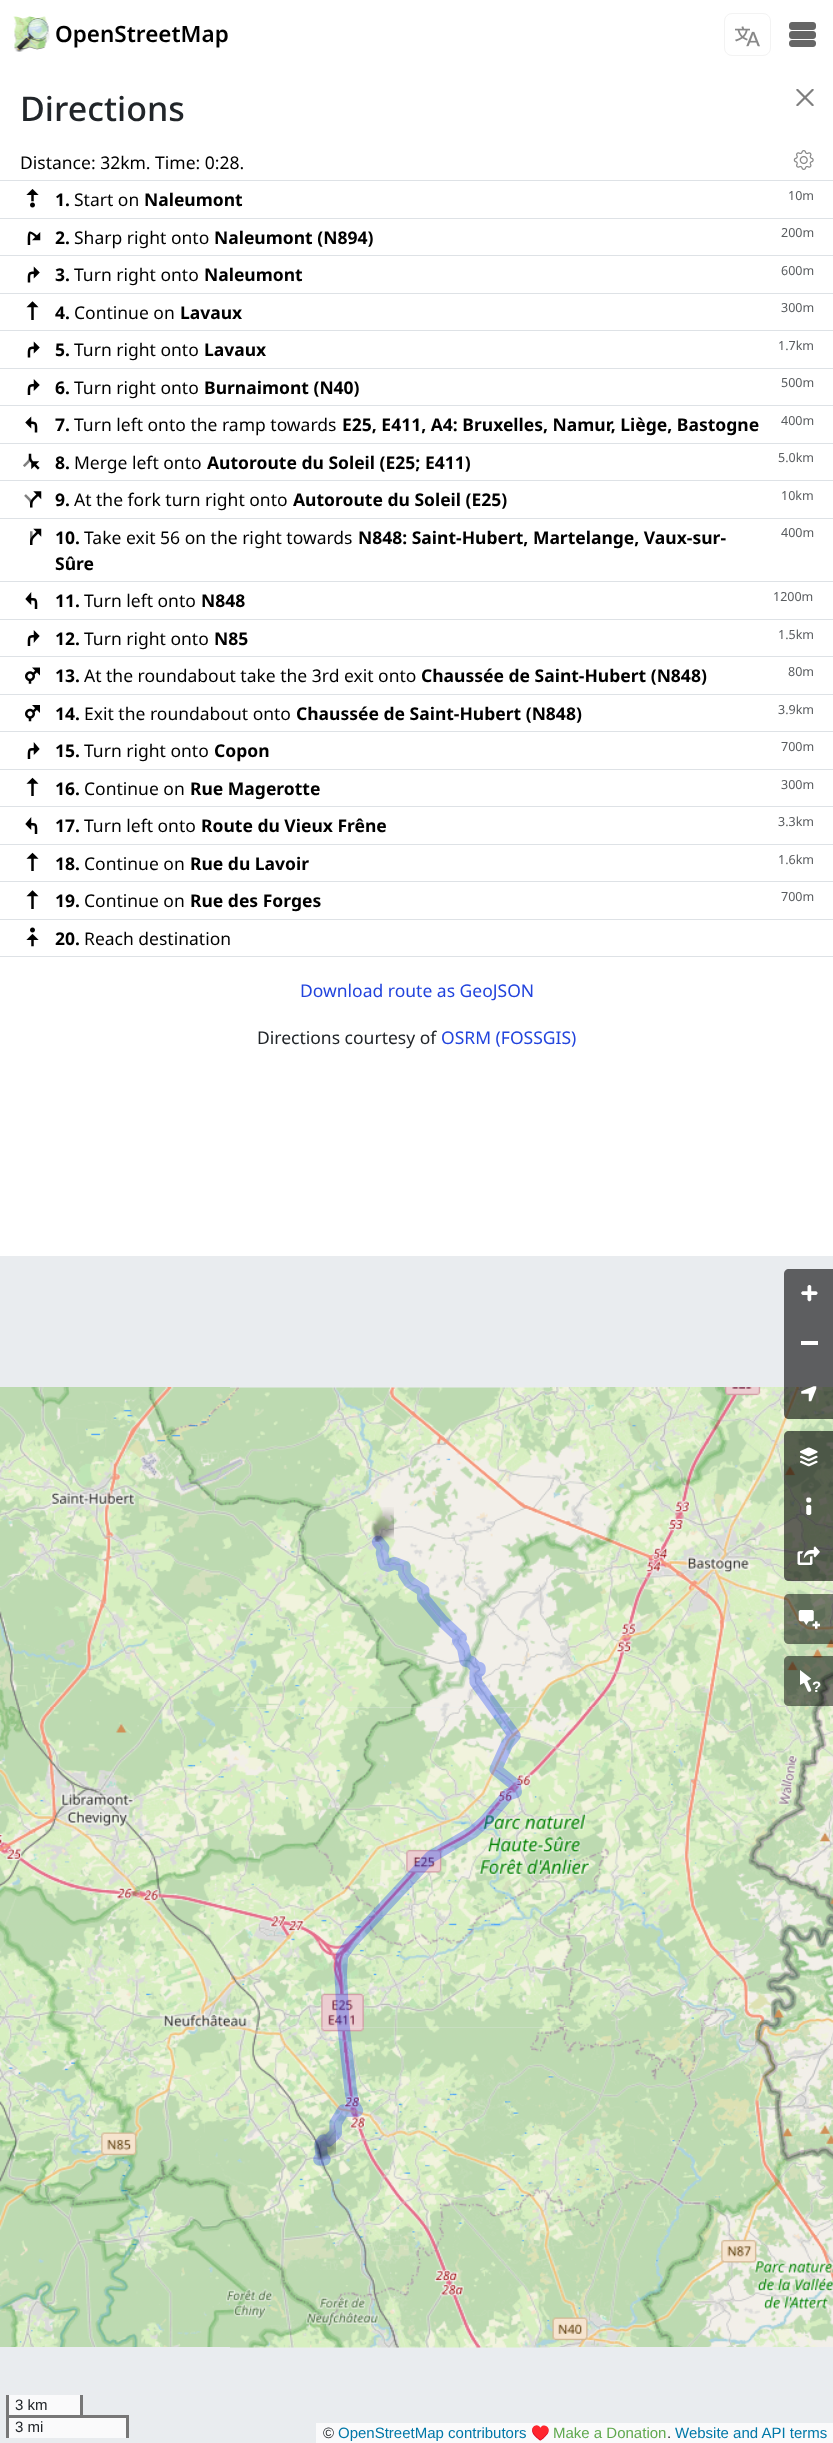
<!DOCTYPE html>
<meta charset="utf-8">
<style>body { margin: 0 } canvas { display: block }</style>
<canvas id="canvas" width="833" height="2443"></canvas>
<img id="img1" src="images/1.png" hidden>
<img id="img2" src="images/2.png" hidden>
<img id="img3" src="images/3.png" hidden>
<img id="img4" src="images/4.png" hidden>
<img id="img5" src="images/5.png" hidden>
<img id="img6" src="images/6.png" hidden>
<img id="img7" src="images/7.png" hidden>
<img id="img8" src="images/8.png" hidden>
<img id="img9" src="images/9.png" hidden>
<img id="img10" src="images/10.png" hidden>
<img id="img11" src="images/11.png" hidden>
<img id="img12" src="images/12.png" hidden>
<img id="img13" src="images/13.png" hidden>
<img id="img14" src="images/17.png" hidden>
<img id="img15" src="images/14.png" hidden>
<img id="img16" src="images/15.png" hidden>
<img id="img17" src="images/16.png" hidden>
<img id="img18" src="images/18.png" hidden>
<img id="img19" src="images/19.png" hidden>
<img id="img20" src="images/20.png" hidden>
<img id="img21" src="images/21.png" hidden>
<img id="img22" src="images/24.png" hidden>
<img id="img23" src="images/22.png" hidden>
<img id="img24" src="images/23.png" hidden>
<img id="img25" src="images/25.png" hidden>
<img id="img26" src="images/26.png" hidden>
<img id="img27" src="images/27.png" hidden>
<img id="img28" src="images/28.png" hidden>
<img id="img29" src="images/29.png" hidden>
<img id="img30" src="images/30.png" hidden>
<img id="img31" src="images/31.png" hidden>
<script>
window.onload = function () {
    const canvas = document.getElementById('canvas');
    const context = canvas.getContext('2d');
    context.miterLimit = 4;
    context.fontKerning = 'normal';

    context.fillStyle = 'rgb(255, 255, 255)';
    context.fillRect(0, 0, 833, 2443);
    context.drawImage(document.getElementById('img1'), 13, 16, 37, 36);
    context.beginPath();
    context.roundRect(724.5, 13.5, 46, 42, 7.5);
    context.strokeStyle = 'rgb(243, 243, 243)';
    context.stroke();
    context.drawImage(document.getElementById('img2'), 735, 26, 25, 21);
    context.drawImage(document.getElementById('img3'), 789, 22, 27, 25);
    context.drawImage(document.getElementById('img4'), 796, 89, 18, 17);
    context.fillStyle = 'rgb(222, 226, 230)';
    context.fillRect(0, 180, 833, 1);
    context.drawImage(document.getElementById('img5'), 793, 150, 21, 20);
    context.drawImage(document.getElementById('img6'), 26, 189, 13, 19);
    context.fillRect(0, 218, 833, 1);
    context.fillRect(0, 255, 833, 1);
    context.beginPath();
    context.moveTo(29, 245);
    context.bezierCurveTo(29, 233.5, 27, 227, 39, 239);
    context.moveTo(39, 239);
    context.lineTo(39, 235);
    context.lineTo(35, 239);
    context.closePath();
    context.moveTo(29, 282.5);
    context.bezierCurveTo(29, 273, 27.5, 272.5, 37.5, 272.5);
    context.moveTo(35, 275.5);
    context.lineTo(38, 272.5);
    context.lineTo(35, 269.5);
    context.closePath();
    context.strokeStyle = 'rgb(0, 0, 0)';
    context.lineWidth = 2.5;
    context.stroke();
    context.fillRect(0, 293, 833, 1);
    context.fillRect(0, 330, 833, 1);
    context.beginPath();
    context.moveTo(32.5, 320);
    context.lineTo(32.5, 304);
    context.moveTo(35.5, 306);
    context.lineTo(32.5, 303);
    context.lineTo(29.5, 306);
    context.closePath();
    context.moveTo(29, 357.5);
    context.bezierCurveTo(29, 348, 27.5, 347.5, 37.5, 347.5);
    context.moveTo(35, 350.5);
    context.lineTo(38, 347.5);
    context.lineTo(35, 344.5);
    context.closePath();
    context.stroke();
    context.fillRect(0, 368, 833, 1);
    context.fillRect(0, 405, 833, 1);
    context.beginPath();
    context.moveTo(29, 395);
    context.bezierCurveTo(29, 385.5, 27.5, 385, 37.5, 385);
    context.moveTo(35, 388);
    context.lineTo(38, 385);
    context.lineTo(35, 382);
    context.closePath();
    context.moveTo(36, 432.5);
    context.bezierCurveTo(36, 423, 37.5, 422.5, 27.5, 422.5);
    context.moveTo(30, 425.5);
    context.lineTo(27, 422.5);
    context.lineTo(30, 419.5);
    context.closePath();
    context.stroke();
    context.fillRect(0, 443, 833, 1);
    context.drawImage(document.getElementById('img7'), 23, 453, 17, 17);
    context.fillRect(0, 480, 833, 1);
    context.drawImage(document.getElementById('img8'), 24, 491, 18, 17);
    context.fillRect(0, 518, 833, 1);
    context.drawImage(document.getElementById('img9'), 30, 528, 12, 17);
    context.fillRect(0, 581, 833, 1);
    context.fillRect(0, 619, 833, 1);
    context.beginPath();
    context.moveTo(36, 609);
    context.bezierCurveTo(36, 599, 37.5, 599, 27.5, 599);
    context.moveTo(30, 602);
    context.lineTo(27, 599);
    context.lineTo(30, 595.5);
    context.closePath();
    context.moveTo(29, 646);
    context.bezierCurveTo(29, 636.5, 27.5, 636, 37.5, 636);
    context.moveTo(35, 639.5);
    context.lineTo(38, 636);
    context.lineTo(35, 633);
    context.closePath();
    context.stroke();
    context.fillRect(0, 656, 833, 1);
    context.drawImage(document.getElementById('img10'), 25, 667, 15, 17);
    context.fillRect(0, 694, 833, 1);
    context.drawImage(document.getElementById('img11'), 25, 705, 15, 17);
    context.fillRect(0, 731, 833, 1);
    context.fillRect(0, 769, 833, 1);
    context.beginPath();
    context.moveTo(29, 759);
    context.bezierCurveTo(29, 749, 27.5, 749, 37.5, 749);
    context.moveTo(35, 752);
    context.lineTo(38, 749);
    context.lineTo(35, 745.5);
    context.closePath();
    context.moveTo(32.5, 796);
    context.lineTo(32.5, 780);
    context.moveTo(35.5, 782.5);
    context.lineTo(32.5, 779.5);
    context.lineTo(29.5, 782.5);
    context.closePath();
    context.stroke();
    context.fillRect(0, 806, 833, 1);
    context.fillRect(0, 844, 833, 1);
    context.beginPath();
    context.moveTo(36, 834);
    context.bezierCurveTo(36, 824, 37.5, 824, 27.5, 824);
    context.moveTo(30, 827);
    context.lineTo(27, 824);
    context.lineTo(30, 820.5);
    context.closePath();
    context.moveTo(32.5, 871);
    context.lineTo(32.5, 855);
    context.moveTo(35.5, 857.5);
    context.lineTo(32.5, 854.5);
    context.lineTo(29.5, 857.5);
    context.closePath();
    context.stroke();
    context.fillRect(0, 881, 833, 1);
    context.beginPath();
    context.moveTo(32.5, 909);
    context.lineTo(32.5, 892.5);
    context.moveTo(35.5, 895);
    context.lineTo(32.5, 892);
    context.lineTo(29.5, 895);
    context.closePath();
    context.stroke();
    context.fillRect(0, 919, 833, 1);
    context.drawImage(document.getElementById('img12'), 26, 927, 13, 20);
    context.fillRect(0, 956, 833, 1);
    context.fillStyle = 'rgb(233, 236, 239)';
    context.fillRect(0, 1256, 833, 1187);
    context.fillStyle = 'rgb(250, 250, 251)';
    context.fillRect(9, 2418, 117, 20);
    context.drawImage(document.getElementById('img13'), 0, 1387, 230, 320);
    context.drawImage(document.getElementById('img14'), 230, 1707, 320, 321);
    context.drawImage(document.getElementById('img15'), 230, 1387, 320, 321);
    context.drawImage(document.getElementById('img16'), 550, 1387, 283, 320);
    context.drawImage(document.getElementById('img17'), 0, 1707, 230, 320);
    context.drawImage(document.getElementById('img18'), 550, 1707, 283, 320);
    context.drawImage(document.getElementById('img19'), 0, 2027, 230, 320);
    context.drawImage(document.getElementById('img20'), 230, 2027, 320, 321);
    context.drawImage(document.getElementById('img21'), 550, 2027, 283, 320);
    context.drawImage(document.getElementById('img22'), 313, 1535, 209, 631);
    context.drawImage(document.getElementById('img23'), 371, 1507, 23, 35);
    context.drawImage(document.getElementById('img24'), 313, 2125, 23, 35);
    context.fillStyle = 'rgb(93, 94, 96)';
    context.beginPath();
    context.moveTo(789, 1269);
    context.lineTo(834, 1269);
    context.lineTo(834, 1319);
    context.lineTo(784, 1319);
    context.lineTo(784, 1274);
    context.bezierCurveTo(784, 1271, 786, 1269, 789, 1269);
    context.closePath();
    context.fill();
    context.drawImage(document.getElementById('img25'), 801, 1285, 17, 17);
    context.fillRect(784, 1319, 49, 50);
    context.fillStyle = 'rgb(255, 255, 255)';
    context.fillRect(801, 1341, 17, 4);
    context.fillStyle = 'rgba(0, 0, 0, 0.6)';
    context.beginPath();
    context.moveTo(784, 1369);
    context.lineTo(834, 1369);
    context.lineTo(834, 1419);
    context.lineTo(789, 1419);
    context.bezierCurveTo(786, 1419, 784, 1417, 784, 1414);
    context.closePath();
    context.fill();
    context.drawImage(document.getElementById('img26'), 801, 1386, 16, 16);
    context.beginPath();
    context.moveTo(789, 1431);
    context.lineTo(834, 1431);
    context.lineTo(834, 1481);
    context.lineTo(784, 1481);
    context.lineTo(784, 1436);
    context.bezierCurveTo(784, 1433, 786, 1431, 789, 1431);
    context.closePath();
    context.fill();
    context.drawImage(document.getElementById('img27'), 800, 1447, 18, 20);
    context.fillRect(784, 1481, 49, 50);
    context.drawImage(document.getElementById('img28'), 806, 1497, 6, 18);
    context.beginPath();
    context.moveTo(784, 1531);
    context.lineTo(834, 1531);
    context.lineTo(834, 1581);
    context.lineTo(789, 1581);
    context.bezierCurveTo(786, 1581, 784, 1579, 784, 1576);
    context.closePath();
    context.fill();
    context.drawImage(document.getElementById('img29'), 797, 1546, 23, 19);
    context.fillStyle = 'rgba(0, 0, 0, 0.5)';
    context.beginPath();
    context.moveTo(789, 1594);
    context.lineTo(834, 1594);
    context.lineTo(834, 1644);
    context.lineTo(789, 1644);
    context.bezierCurveTo(786, 1644, 784, 1642, 784, 1639);
    context.lineTo(784, 1599);
    context.bezierCurveTo(784, 1596, 786, 1594, 789, 1594);
    context.closePath();
    context.fill();
    context.drawImage(document.getElementById('img30'), 798, 1610, 22, 19);
    context.beginPath();
    context.moveTo(789, 1656);
    context.lineTo(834, 1656);
    context.lineTo(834, 1706);
    context.lineTo(789, 1706);
    context.bezierCurveTo(786, 1706, 784, 1704, 784, 1701);
    context.lineTo(784, 1661);
    context.bezierCurveTo(784, 1658, 786, 1656, 789, 1656);
    context.closePath();
    context.fill();
    context.drawImage(document.getElementById('img31'), 800, 1670, 12, 22);
    context.fillStyle = 'rgb(250, 250, 251)';
    context.fillRect(9, 2395, 71, 20);
    context.fillStyle = 'rgb(119, 119, 119)';
    context.fillRect(80, 2395, 3, 23);
    context.fillRect(6, 2395, 3, 23);
    context.fillRect(6, 2415, 123, 3);
    context.fillRect(126, 2415, 3, 23);
    context.fillRect(6, 2415, 3, 23);
    context.fillStyle = 'rgb(250, 250, 251)';
    context.fillRect(316, 2423, 517, 20);
    context.font = '600 22.5px Noto Sans';
    context.fillStyle = 'rgb(0, 0, 0)';
    context.fillText('OpenStreetMap', 55, 42);
    context.font = '500 34px Noto Sans';
    context.fillStyle = 'rgb(33, 37, 41)';
    context.fillText('Directions', 20, 121);
    context.font = '17.5px Noto Sans';
    context.fillStyle = 'rgb(0, 0, 0)';
    context.fillText('Distance: 32km. Time: 0:28.', 20, 169);
    context.font = 'bold 17.5px Noto Sans';
    context.fillText('1.', 55, 206);
    context.font = '17.5px Noto Sans';
    context.fillText('Start on', 74, 206);
    context.font = 'bold 17.5px Noto Sans';
    context.fillText('Naleumont', 144, 206);
    context.font = '12.5px Noto Sans';
    context.fillStyle = 'rgb(89, 92, 95)';
    context.fillText('10m', 788, 200);
    context.font = 'bold 17.5px Noto Sans';
    context.fillStyle = 'rgb(0, 0, 0)';
    context.fillText('2.', 55, 244);
    context.font = '17.5px Noto Sans';
    context.fillText('Sharp right onto', 74, 244);
    context.font = 'bold 17.5px Noto Sans';
    context.fillText('Naleumont (N894)', 214, 244);
    context.font = '12.5px Noto Sans';
    context.fillStyle = 'rgb(89, 92, 95)';
    context.fillText('200m', 781, 237);
    context.font = 'bold 17.5px Noto Sans';
    context.fillStyle = 'rgb(0, 0, 0)';
    context.fillText('3.', 55, 281);
    context.font = '17.5px Noto Sans';
    context.fillText('Turn right onto', 74, 281);
    context.font = 'bold 17.5px Noto Sans';
    context.fillText('Naleumont', 204, 281);
    context.font = '12.5px Noto Sans';
    context.fillStyle = 'rgb(89, 92, 95)';
    context.fillText('600m', 781, 275);
    context.font = 'bold 17.5px Noto Sans';
    context.fillStyle = 'rgb(0, 0, 0)';
    context.fillText('4.', 55, 319);
    context.font = '17.5px Noto Sans';
    context.fillText('Continue on', 74, 319);
    context.font = 'bold 17.5px Noto Sans';
    context.fillText('Lavaux', 180, 319);
    context.font = '12.5px Noto Sans';
    context.fillStyle = 'rgb(89, 92, 95)';
    context.fillText('300m', 781, 312);
    context.font = 'bold 17.5px Noto Sans';
    context.fillStyle = 'rgb(0, 0, 0)';
    context.fillText('5.', 55, 356);
    context.font = '17.5px Noto Sans';
    context.fillText('Turn right onto', 74, 356);
    context.font = 'bold 17.5px Noto Sans';
    context.fillText('Lavaux', 204, 356);
    context.font = '12.5px Noto Sans';
    context.fillStyle = 'rgb(89, 92, 95)';
    context.fillText('1.7km', 778, 350);
    context.font = 'bold 17.5px Noto Sans';
    context.fillStyle = 'rgb(0, 0, 0)';
    context.fillText('6.', 55, 394);
    context.font = '17.5px Noto Sans';
    context.fillText('Turn right onto', 74, 394);
    context.font = 'bold 17.5px Noto Sans';
    context.fillText('Burnaimont (N40)', 204, 394);
    context.font = '12.5px Noto Sans';
    context.fillStyle = 'rgb(89, 92, 95)';
    context.fillText('500m', 781, 387);
    context.font = 'bold 17.5px Noto Sans';
    context.fillStyle = 'rgb(0, 0, 0)';
    context.fillText('7.', 55, 431);
    context.font = '17.5px Noto Sans';
    context.fillText('Turn left onto the ramp towards', 74, 431);
    context.font = 'bold 17.5px Noto Sans';
    context.fillText('E25, E411, A4: Bruxelles, Namur, Liège, Bastogne', 342, 431);
    context.font = '12.5px Noto Sans';
    context.fillStyle = 'rgb(89, 92, 95)';
    context.fillText('400m', 781, 425);
    context.font = 'bold 17.5px Noto Sans';
    context.fillStyle = 'rgb(0, 0, 0)';
    context.fillText('8.', 55, 469);
    context.font = '17.5px Noto Sans';
    context.fillText('Merge left onto', 74, 469);
    context.font = 'bold 17.5px Noto Sans';
    context.fillText('Autoroute du Soleil (E25; E411)', 207, 469);
    context.font = '12.5px Noto Sans';
    context.fillStyle = 'rgb(89, 92, 95)';
    context.fillText('5.0km', 778, 462);
    context.font = 'bold 17.5px Noto Sans';
    context.fillStyle = 'rgb(0, 0, 0)';
    context.fillText('9.', 55, 506);
    context.font = '17.5px Noto Sans';
    context.fillText('At the fork turn right onto', 74, 506);
    context.font = 'bold 17.5px Noto Sans';
    context.fillText('Autoroute du Soleil (E25)', 293, 506);
    context.font = '12.5px Noto Sans';
    context.fillStyle = 'rgb(89, 92, 95)';
    context.fillText('10km', 781, 500);
    context.font = 'bold 17.5px Noto Sans';
    context.fillStyle = 'rgb(0, 0, 0)';
    context.fillText('10.', 55, 544);
    context.font = '17.5px Noto Sans';
    context.fillText('Take exit 56 on the right towards', 84, 544);
    context.font = 'bold 17.5px Noto Sans';
    context.fillText('N848: Saint-Hubert, Martelange, Vaux-sur-', 358, 544);
    context.fillText('Sûre', 55, 570);
    context.font = '12.5px Noto Sans';
    context.fillStyle = 'rgb(89, 92, 95)';
    context.fillText('400m', 781, 537);
    context.font = 'bold 17.5px Noto Sans';
    context.fillStyle = 'rgb(0, 0, 0)';
    context.fillText('11.', 55, 607);
    context.font = '17.5px Noto Sans';
    context.fillText('Turn left onto', 84, 607);
    context.font = 'bold 17.5px Noto Sans';
    context.fillText('N848', 201, 607);
    context.font = '12.5px Noto Sans';
    context.fillStyle = 'rgb(89, 92, 95)';
    context.fillText('1200m', 773, 601);
    context.font = 'bold 17.5px Noto Sans';
    context.fillStyle = 'rgb(0, 0, 0)';
    context.fillText('12.', 55, 645);
    context.font = '17.5px Noto Sans';
    context.fillText('Turn right onto', 84, 645);
    context.font = 'bold 17.5px Noto Sans';
    context.fillText('N85', 214, 645);
    context.font = '12.5px Noto Sans';
    context.fillStyle = 'rgb(89, 92, 95)';
    context.fillText('1.5km', 778, 639);
    context.font = 'bold 17.5px Noto Sans';
    context.fillStyle = 'rgb(0, 0, 0)';
    context.fillText('13.', 55, 682);
    context.font = '17.5px Noto Sans';
    context.fillText('At the roundabout take the 3rd exit onto', 84, 682);
    context.font = 'bold 17.5px Noto Sans';
    context.fillText('Chaussée de Saint-Hubert (N848)', 421, 682);
    context.font = '12.5px Noto Sans';
    context.fillStyle = 'rgb(89, 92, 95)';
    context.fillText('80m', 788, 676);
    context.font = 'bold 17.5px Noto Sans';
    context.fillStyle = 'rgb(0, 0, 0)';
    context.fillText('14.', 55, 720);
    context.font = '17.5px Noto Sans';
    context.fillText('Exit the roundabout onto', 84, 720);
    context.font = 'bold 17.5px Noto Sans';
    context.fillText('Chaussée de Saint-Hubert (N848)', 296, 720);
    context.font = '12.5px Noto Sans';
    context.fillStyle = 'rgb(89, 92, 95)';
    context.fillText('3.9km', 778, 714);
    context.font = 'bold 17.5px Noto Sans';
    context.fillStyle = 'rgb(0, 0, 0)';
    context.fillText('15.', 55, 757);
    context.font = '17.5px Noto Sans';
    context.fillText('Turn right onto', 84, 757);
    context.font = 'bold 17.5px Noto Sans';
    context.fillText('Copon', 214, 757);
    context.font = '12.5px Noto Sans';
    context.fillStyle = 'rgb(89, 92, 95)';
    context.fillText('700m', 781, 751);
    context.font = 'bold 17.5px Noto Sans';
    context.fillStyle = 'rgb(0, 0, 0)';
    context.fillText('16.', 55, 795);
    context.font = '17.5px Noto Sans';
    context.fillText('Continue on', 84, 795);
    context.font = 'bold 17.5px Noto Sans';
    context.fillText('Rue Magerotte', 190, 795);
    context.font = '12.5px Noto Sans';
    context.fillStyle = 'rgb(89, 92, 95)';
    context.fillText('300m', 781, 789);
    context.font = 'bold 17.5px Noto Sans';
    context.fillStyle = 'rgb(0, 0, 0)';
    context.fillText('17.', 55, 832);
    context.font = '17.5px Noto Sans';
    context.fillText('Turn left onto', 84, 832);
    context.font = 'bold 17.5px Noto Sans';
    context.fillText('Route du Vieux Frêne', 201, 832);
    context.font = '12.5px Noto Sans';
    context.fillStyle = 'rgb(89, 92, 95)';
    context.fillText('3.3km', 778, 826);
    context.font = 'bold 17.5px Noto Sans';
    context.fillStyle = 'rgb(0, 0, 0)';
    context.fillText('18.', 55, 870);
    context.font = '17.5px Noto Sans';
    context.fillText('Continue on', 84, 870);
    context.font = 'bold 17.5px Noto Sans';
    context.fillText('Rue du Lavoir', 190, 870);
    context.font = '12.5px Noto Sans';
    context.fillStyle = 'rgb(89, 92, 95)';
    context.fillText('1.6km', 778, 864);
    context.font = 'bold 17.5px Noto Sans';
    context.fillStyle = 'rgb(0, 0, 0)';
    context.fillText('19.', 55, 907);
    context.font = '17.5px Noto Sans';
    context.fillText('Continue on', 84, 907);
    context.font = 'bold 17.5px Noto Sans';
    context.fillText('Rue des Forges', 190, 907);
    context.font = '12.5px Noto Sans';
    context.fillStyle = 'rgb(89, 92, 95)';
    context.fillText('700m', 781, 901);
    context.font = 'bold 17.5px Noto Sans';
    context.fillStyle = 'rgb(0, 0, 0)';
    context.fillText('20.', 55, 945);
    context.font = '17.5px Noto Sans';
    context.fillText('Reach destination', 84, 945);
    context.fillStyle = 'rgb(34, 68, 221)';
    context.fillText('Download route as GeoJSON', 300, 997);
    context.fillStyle = 'rgb(33, 37, 41)';
    context.fillText('Directions courtesy of', 257, 1044);
    context.fillStyle = 'rgb(34, 68, 221)';
    context.fillText('OSRM (FOSSGIS)', 441, 1044);
    context.font = 'bold 15px Liberation Sans';
    context.fillStyle = 'rgb(255, 255, 255)';
    context.fillText('?', 812, 1692);
    context.font = '15px Liberation Sans';
    context.fillStyle = 'rgb(33, 37, 41)';
    context.fillText('3 km', 15, 2410);
    context.fillText('3 mi', 15, 2432);
    context.fillText('©', 323, 2438);
    context.fillStyle = 'rgb(0, 120, 168)';
    context.fillText('OpenStreetMap contributors', 338, 2438);
    context.font = '15px Noto Color Emoji';
    context.fillStyle = 'rgb(33, 37, 41)';
    context.fillText('♥️', 531, 2438);
    context.font = '15px Liberation Sans';
    context.fillStyle = 'rgb(96, 169, 79)';
    context.fillText('Make a Donation', 553, 2438);
    context.fillStyle = 'rgb(33, 37, 41)';
    context.fillText('.', 667, 2438);
    context.fillStyle = 'rgb(0, 120, 168)';
    context.fillText('Website and API terms', 675, 2438);
};
</script>
